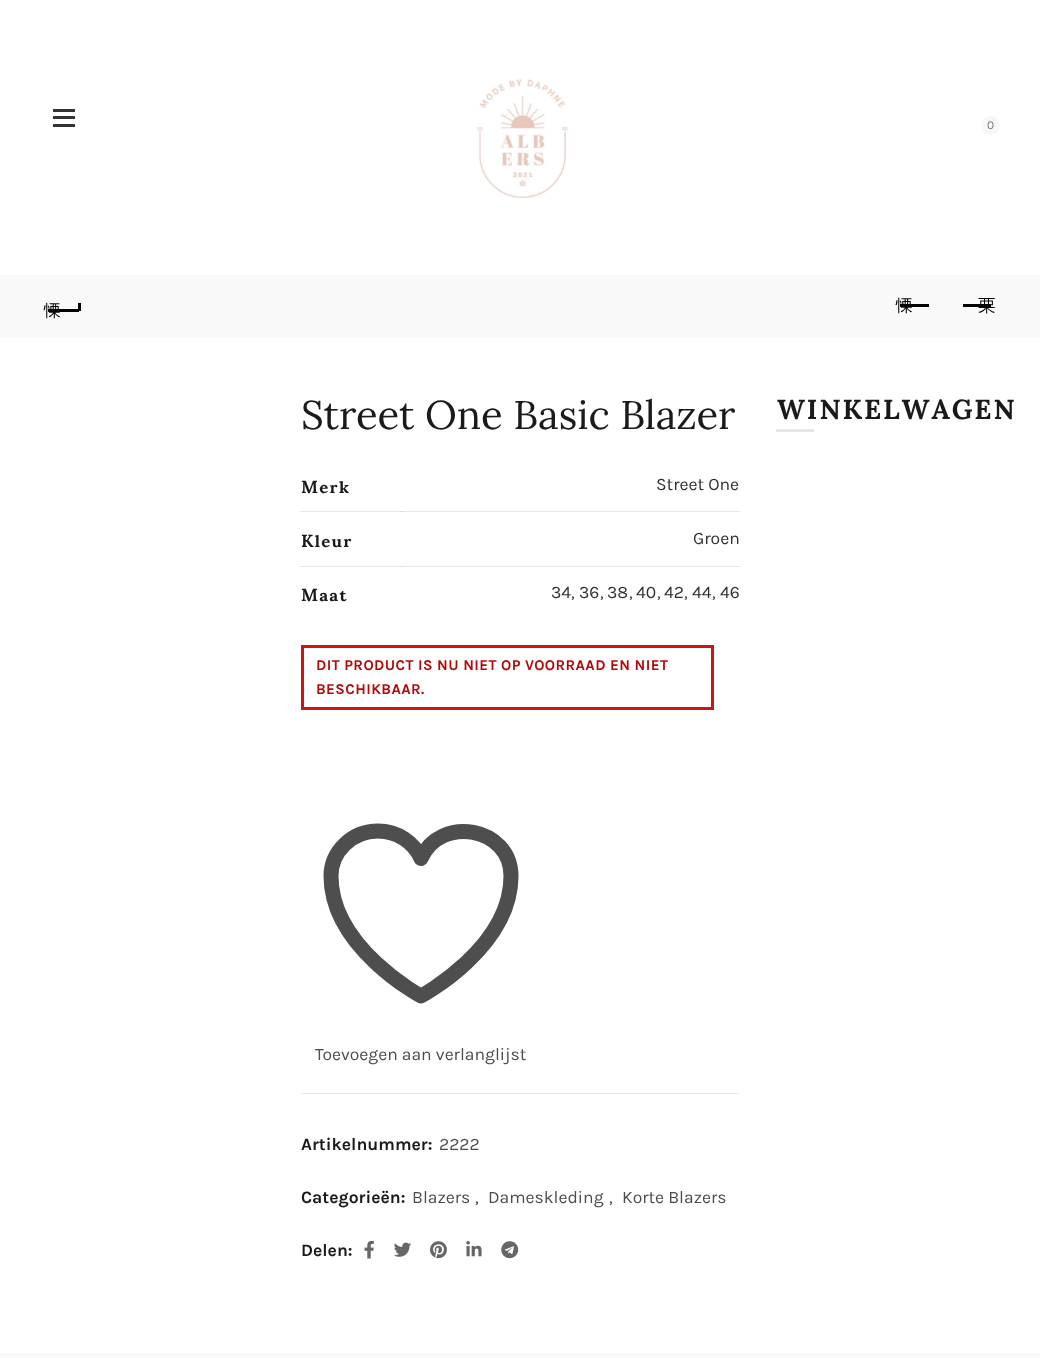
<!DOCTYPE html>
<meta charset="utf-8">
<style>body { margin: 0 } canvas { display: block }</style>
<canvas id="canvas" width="1040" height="1358"></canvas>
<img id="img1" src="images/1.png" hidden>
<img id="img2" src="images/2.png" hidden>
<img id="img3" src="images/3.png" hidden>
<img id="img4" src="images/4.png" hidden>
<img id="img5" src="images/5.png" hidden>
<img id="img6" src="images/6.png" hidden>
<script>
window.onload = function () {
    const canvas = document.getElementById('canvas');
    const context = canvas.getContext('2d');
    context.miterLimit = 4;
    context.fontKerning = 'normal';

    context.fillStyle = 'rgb(255, 255, 255)';
    context.fillRect(0, 0, 1040, 1358);
    context.fillStyle = 'rgb(232, 232, 232)';
    context.fillRect(300, 511, 440, 1);
    context.fillRect(300, 566, 440, 1);
    context.fillStyle = 'rgb(51, 51, 51)';
    context.fillRect(53, 116, 22, 3);
    context.fillRect(53, 109, 22, 3);
    context.fillRect(53, 124, 22, 3);
    context.drawImage(document.getElementById('img1'), 475, 78, 94, 121);
    context.fillStyle = 'rgb(247, 247, 247)';
    context.beginPath();
    context.arc(990.5, 125.5, 9.5, 0, 2 * Math.PI);
    context.fill();
    context.fillStyle = 'rgb(249, 249, 249)';
    context.fillRect(0, 275, 1040, 63);
    context.fillStyle = 'rgb(0, 0, 0)';
    context.fillRect(48, 309, 31, 3);
    context.fillRect(78, 303, 3, 8);
    context.fillRect(900, 304, 29, 3);
    context.fillRect(963, 304, 28, 3);
    context.fillStyle = 'rgb(213, 213, 213)';
    context.fillRect(401, 511, 2, 1);
    context.fillRect(401, 566, 2, 1);
    context.strokeStyle = 'rgb(204, 20, 20)';
    context.lineWidth = 3;
    context.strokeRect(302.5, 646.5, 410, 62);
    context.beginPath();
    context.moveTo(511, 876);
    context.bezierCurveTo(511, 827, 440.5, 814.5, 421, 858.5);
    context.bezierCurveTo(414, 842.5, 397.5, 831, 378, 831);
    context.bezierCurveTo(352, 831, 331, 851.5, 331, 876);
    context.bezierCurveTo(331, 948, 421, 996, 421, 996);
    context.bezierCurveTo(421, 996, 511, 948, 511, 876);
    context.closePath();
    context.strokeStyle = 'rgb(78, 78, 78)';
    context.lineWidth = 15;
    context.lineCap = 'round';
    context.lineJoin = 'round';
    context.stroke();
    context.fillStyle = 'rgb(232, 232, 232)';
    context.fillRect(301, 1093, 438, 1);
    context.drawImage(document.getElementById('img2'), 364, 1240, 10, 19);
    context.drawImage(document.getElementById('img3'), 394, 1242, 17, 15);
    context.drawImage(document.getElementById('img4'), 430, 1241, 17, 18);
    context.drawImage(document.getElementById('img5'), 466, 1241, 16, 16);
    context.drawImage(document.getElementById('img6'), 501, 1241, 18, 18);
    context.fillStyle = 'rgb(230, 230, 230)';
    context.fillRect(776, 429, 38, 3);
    context.fillStyle = 'rgb(249, 249, 249)';
    context.fillRect(0, 1353, 1040, 5);
    context.font = '12px Karla';
    context.fillStyle = 'rgb(126, 126, 126)';
    context.fillText('0', 987, 129);
    context.font = '500 17.5px WenQuanYi Zen Hei';
    context.fillStyle = 'rgb(0, 0, 0)';
    context.fillText('慄', 43, 316);
    context.fillText('慄', 895, 311);
    context.fillText('栗', 978, 311);
    context.font = '40px Lora';
    context.fillStyle = 'rgb(27, 25, 25)';
    context.fillText('Street One Basic Blazer', 301, 429);
    context.letterSpacing = '1.25px';
    context.font = 'bold 17.5px Sumana';
    context.fillText('Merk', 301, 493);
    context.letterSpacing = '0px';
    context.font = '17.5px Karla';
    context.fillStyle = 'rgb(47, 47, 47)';
    context.fillText('Street One', 656, 490);
    context.letterSpacing = '1.25px';
    context.font = 'bold 17.5px Sumana';
    context.fillStyle = 'rgb(27, 25, 25)';
    context.fillText('Kleur', 301, 547);
    context.letterSpacing = '0px';
    context.font = '17.5px Karla';
    context.fillStyle = 'rgb(47, 47, 47)';
    context.fillText('Groen', 693, 544);
    context.letterSpacing = '1.25px';
    context.font = 'bold 17.5px Sumana';
    context.fillStyle = 'rgb(27, 25, 25)';
    context.fillText('Maat', 301, 601);
    context.letterSpacing = '0px';
    context.font = '17.5px Karla';
    context.fillStyle = 'rgb(47, 47, 47)';
    context.fillText('34', 551, 598);
    context.fillStyle = 'rgb(76, 76, 76)';
    context.fillText(',', 571, 598);
    context.fillStyle = 'rgb(47, 47, 47)';
    context.fillText('36', 579, 598);
    context.fillStyle = 'rgb(76, 76, 76)';
    context.fillText(',', 600, 598);
    context.fillStyle = 'rgb(47, 47, 47)';
    context.fillText('38', 607, 598);
    context.fillStyle = 'rgb(76, 76, 76)';
    context.fillText(',', 629, 598);
    context.fillStyle = 'rgb(47, 47, 47)';
    context.fillText('40', 636, 598);
    context.fillStyle = 'rgb(76, 76, 76)';
    context.fillText(',', 657, 598);
    context.fillStyle = 'rgb(47, 47, 47)';
    context.fillText('42', 664, 598);
    context.fillStyle = 'rgb(76, 76, 76)';
    context.fillText(',', 684, 598);
    context.fillStyle = 'rgb(47, 47, 47)';
    context.fillText('44', 692, 598);
    context.fillStyle = 'rgb(76, 76, 76)';
    context.fillText(',', 712, 598);
    context.fillStyle = 'rgb(47, 47, 47)';
    context.fillText('46', 720, 598);
    context.letterSpacing = '0.4px';
    context.font = 'bold 15px Karla';
    context.fillStyle = 'rgb(181, 8, 8)';
    context.fillText('DIT PRODUCT IS NU NIET OP VOORRAAD EN NIET', 316, 670);
    context.fillText('BESCHIKBAAR.', 316, 694);
    context.letterSpacing = '0px';
    context.font = '17.5px Karla';
    context.fillStyle = 'rgb(76, 76, 76)';
    context.fillText('Toevoegen aan verlanglijst', 315, 1060);
    context.font = 'bold 17.5px Karla';
    context.fillStyle = 'rgb(27, 25, 25)';
    context.fillText('Artikelnummer:', 301, 1150);
    context.font = '17.5px Karla';
    context.fillStyle = 'rgb(76, 76, 76)';
    context.fillText('2222', 439, 1150);
    context.font = 'bold 17.5px Karla';
    context.fillStyle = 'rgb(27, 25, 25)';
    context.fillText('Categorieën:', 301, 1203);
    context.font = '17.5px Karla';
    context.fillStyle = 'rgb(76, 76, 76)';
    context.fillText('Blazers', 412, 1203);
    context.fillText(',', 475, 1203);
    context.fillText('Dameskleding', 488, 1203);
    context.fillText(',', 609, 1203);
    context.fillText('Korte Blazers', 622, 1203);
    context.font = 'bold 17.5px Karla';
    context.fillStyle = 'rgb(27, 25, 25)';
    context.fillText('Delen:', 301, 1256);
    context.letterSpacing = '1.9px';
    context.font = 'bold 27.5px Sumana';
    context.fillText('WINKELWAGEN', 777, 419);
};
</script>
